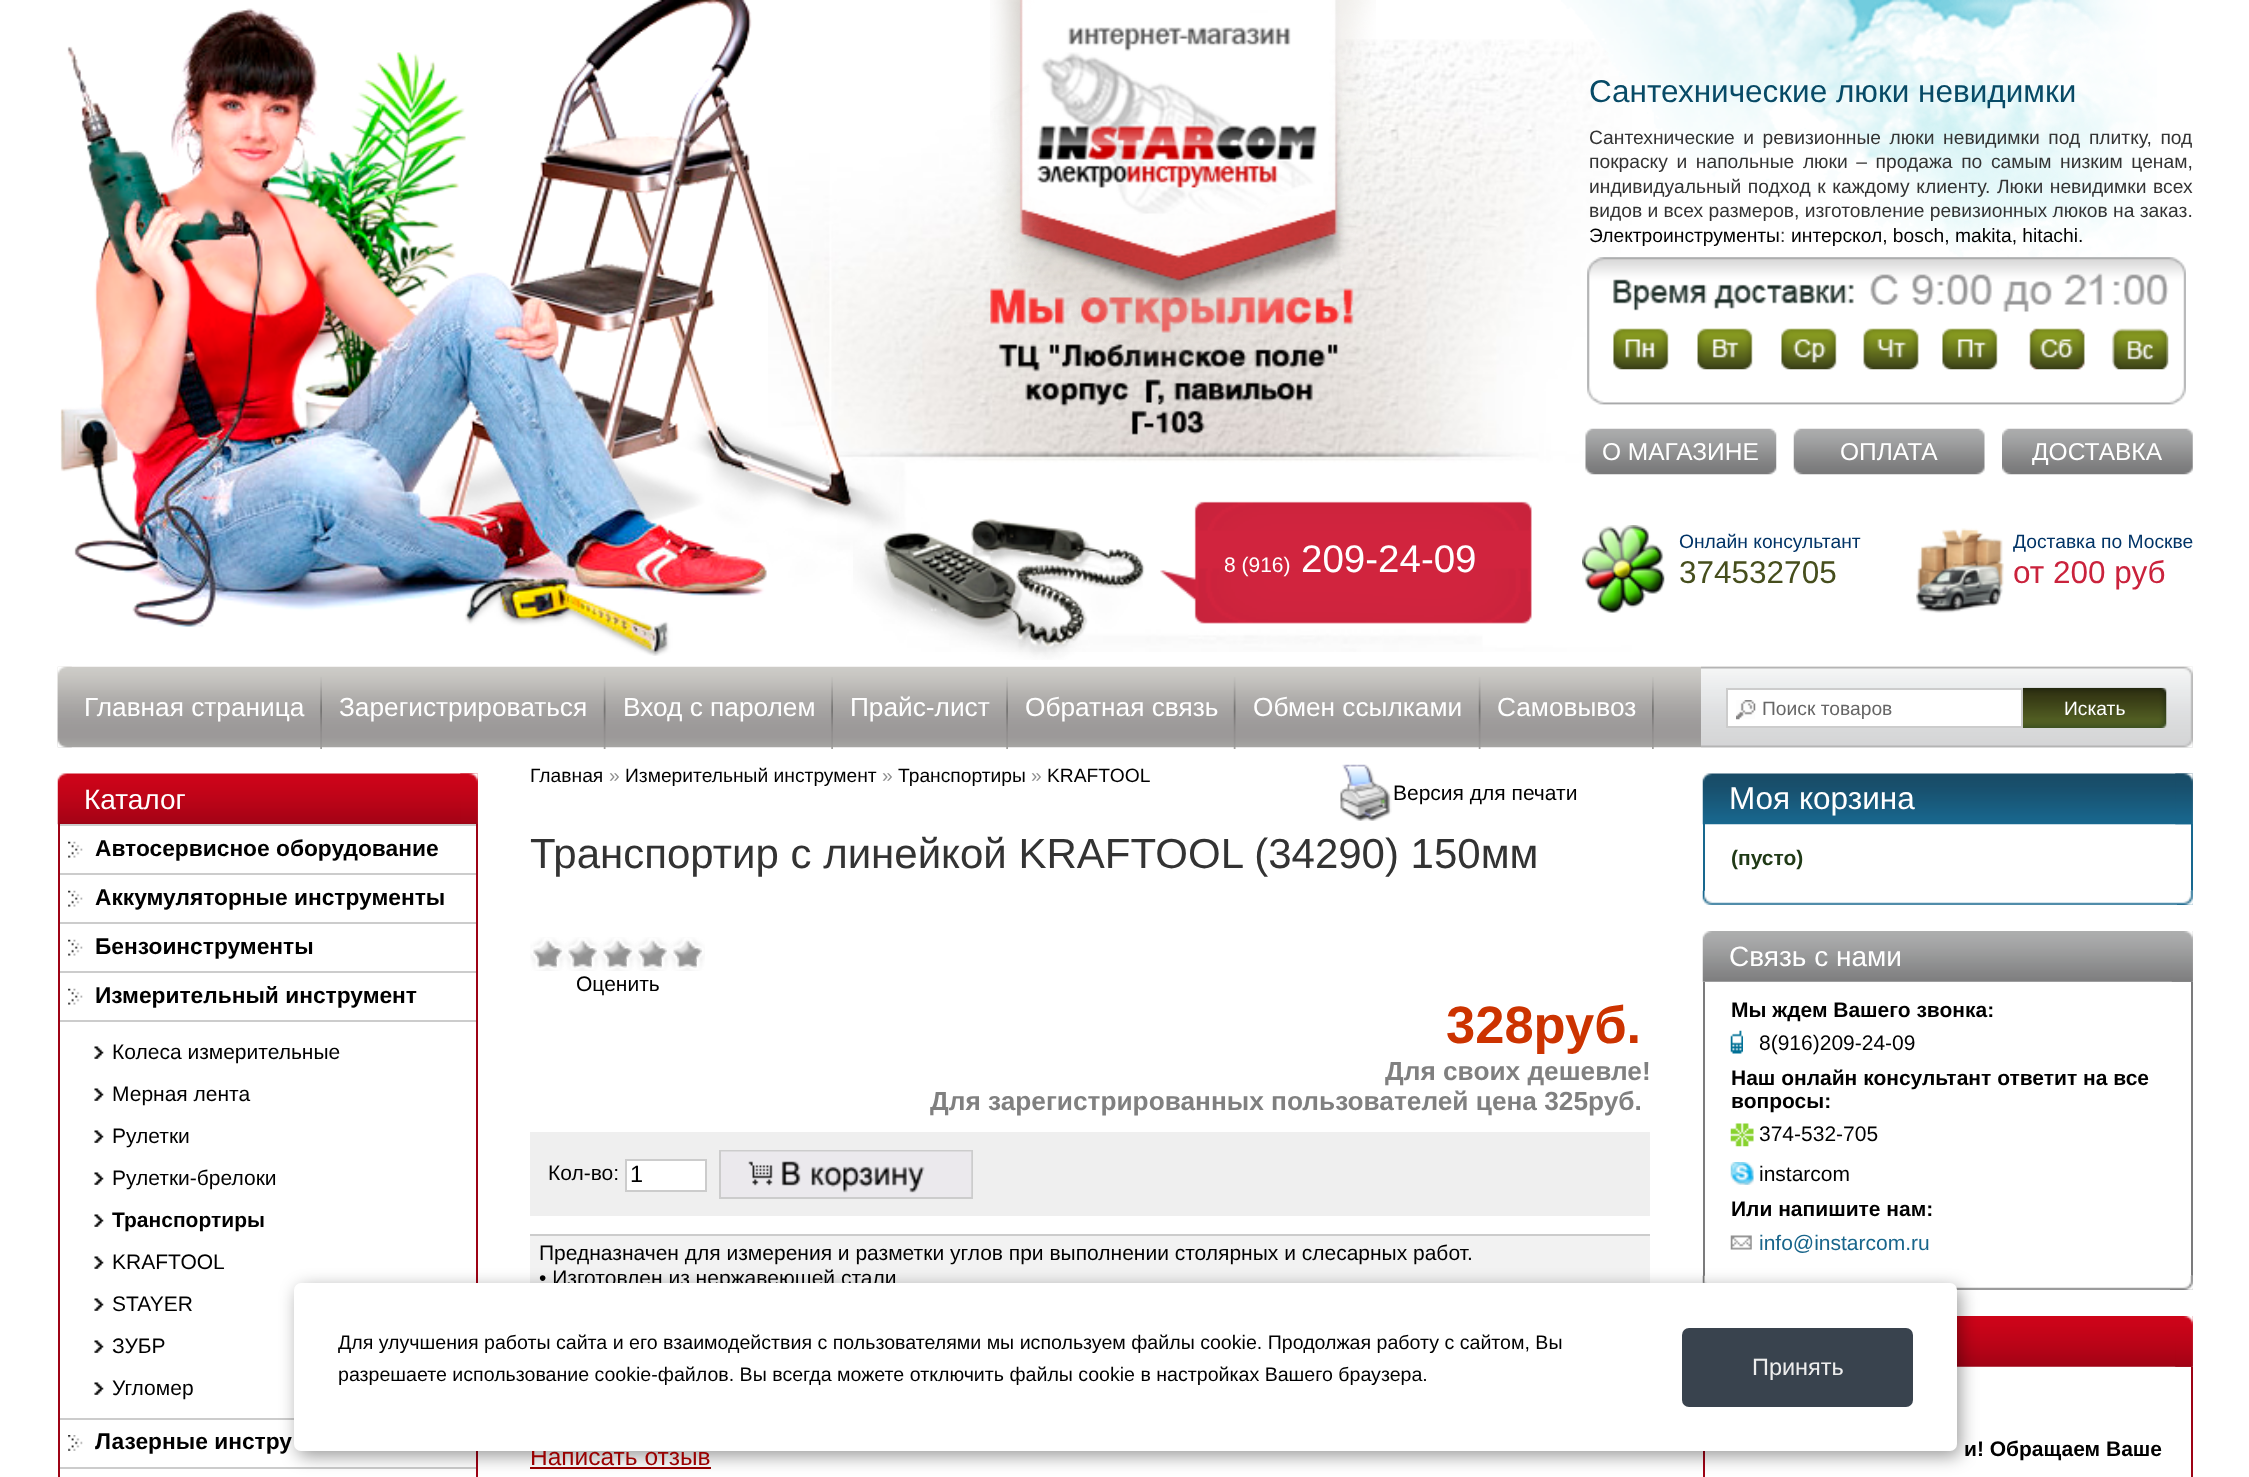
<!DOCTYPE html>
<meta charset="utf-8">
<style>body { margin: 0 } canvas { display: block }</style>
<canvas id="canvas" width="2249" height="1477"></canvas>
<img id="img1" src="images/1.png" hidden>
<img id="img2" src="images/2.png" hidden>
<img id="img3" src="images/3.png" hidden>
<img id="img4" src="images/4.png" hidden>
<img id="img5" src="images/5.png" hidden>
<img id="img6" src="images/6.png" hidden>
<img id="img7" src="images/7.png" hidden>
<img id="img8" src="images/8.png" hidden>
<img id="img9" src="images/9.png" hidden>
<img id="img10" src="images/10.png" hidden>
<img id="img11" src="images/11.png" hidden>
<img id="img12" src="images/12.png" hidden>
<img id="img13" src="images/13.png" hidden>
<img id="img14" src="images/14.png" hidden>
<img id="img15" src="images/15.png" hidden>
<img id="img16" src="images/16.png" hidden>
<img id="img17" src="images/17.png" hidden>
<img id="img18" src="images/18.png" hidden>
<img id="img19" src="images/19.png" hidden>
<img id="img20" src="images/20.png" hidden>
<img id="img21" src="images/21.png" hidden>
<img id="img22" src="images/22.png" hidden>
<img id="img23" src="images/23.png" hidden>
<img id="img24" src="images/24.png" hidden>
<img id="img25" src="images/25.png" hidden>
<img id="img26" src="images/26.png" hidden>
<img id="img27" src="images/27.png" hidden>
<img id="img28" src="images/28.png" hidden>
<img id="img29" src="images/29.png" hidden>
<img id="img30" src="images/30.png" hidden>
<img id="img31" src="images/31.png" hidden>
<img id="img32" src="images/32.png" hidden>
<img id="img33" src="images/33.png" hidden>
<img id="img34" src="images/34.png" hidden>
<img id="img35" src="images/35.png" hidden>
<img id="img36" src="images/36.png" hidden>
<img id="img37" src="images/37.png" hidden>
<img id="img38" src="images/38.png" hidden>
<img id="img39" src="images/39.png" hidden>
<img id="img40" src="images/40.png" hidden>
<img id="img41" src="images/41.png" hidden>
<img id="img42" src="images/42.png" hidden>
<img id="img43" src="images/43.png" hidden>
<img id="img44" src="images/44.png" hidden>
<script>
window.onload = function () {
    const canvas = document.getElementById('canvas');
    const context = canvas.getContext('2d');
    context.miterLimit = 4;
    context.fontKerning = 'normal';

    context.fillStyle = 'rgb(255, 255, 255)';
    context.fillRect(0, 0, 2249, 1477);
    context.drawImage(document.getElementById('img1'), 768, 39, 864, 613);
    context.drawImage(document.getElementById('img2'), 1561, 0, 596, 258);
    context.drawImage(document.getElementById('img3'), 60, 0, 1294, 656);
    context.drawImage(document.getElementById('img4'), 990, 0, 386, 366);
    context.drawImage(document.getElementById('img5'), 1585, 428, 192, 47);
    context.drawImage(document.getElementById('img6'), 1793, 428, 192, 47);
    context.drawImage(document.getElementById('img7'), 2002, 428, 191, 47);
    context.drawImage(document.getElementById('img8'), 1587, 257, 599, 148);
    context.drawImage(document.getElementById('img9'), 1613, 273, 556, 97);
    context.drawImage(document.getElementById('img10'), 853, 518, 292, 142);
    context.drawImage(document.getElementById('img11'), 1160, 501, 372, 123);
    context.drawImage(document.getElementById('img12'), 1582, 525, 83, 88);
    context.drawImage(document.getElementById('img13'), 1916, 528, 88, 85);
    context.drawImage(document.getElementById('img14'), 57, 666, 2136, 82);
    context.drawImage(document.getElementById('img15'), 57, 666, 15, 82);
    context.drawImage(document.getElementById('img16'), 1701, 666, 492, 82);
    context.drawImage(document.getElementById('img17'), 320, 677, 2, 72);
    context.drawImage(document.getElementById('img18'), 603, 677, 3, 72);
    context.drawImage(document.getElementById('img17'), 831, 677, 2, 72);
    context.drawImage(document.getElementById('img17'), 1006, 677, 2, 72);
    context.drawImage(document.getElementById('img18'), 1233, 677, 3, 72);
    context.drawImage(document.getElementById('img18'), 1478, 677, 3, 72);
    context.drawImage(document.getElementById('img19'), 1652, 677, 2, 72);
    context.fillRect(1728, 690, 293, 36);
    context.drawImage(document.getElementById('img20'), 1736, 700, 20, 20);
    context.strokeStyle = 'rgb(204, 204, 204)';
    context.lineWidth = 2;
    context.strokeRect(1727, 689, 295, 38);
    context.drawImage(document.getElementById('img21'), 2023, 687, 144, 41);
    context.drawImage(document.getElementById('img22'), 57, 773, 421, 52);
    context.drawImage(document.getElementById('img23'), 460, 773, 18, 51);
    context.fillStyle = 'rgb(158, 3, 21)';
    context.fillRect(476, 824, 2, 653);
    context.fillRect(58, 824, 2, 653);
    context.fillStyle = 'rgb(204, 204, 204)';
    context.fillRect(60, 824, 416, 2);
    context.drawImage(document.getElementById('img24'), 68, 841, 15, 17);
    context.fillRect(60, 873, 416, 2);
    context.drawImage(document.getElementById('img24'), 68, 890, 15, 17);
    context.fillRect(60, 922, 416, 2);
    context.drawImage(document.getElementById('img24'), 68, 939, 15, 17);
    context.fillRect(60, 971, 416, 2);
    context.drawImage(document.getElementById('img24'), 68, 988, 15, 17);
    context.fillRect(60, 1020, 416, 2);
    context.fillRect(60, 1418, 234, 2);
    context.drawImage(document.getElementById('img25'), 94, 1046, 10, 13);
    context.drawImage(document.getElementById('img25'), 94, 1088, 10, 13);
    context.drawImage(document.getElementById('img25'), 94, 1130, 10, 13);
    context.drawImage(document.getElementById('img25'), 94, 1172, 10, 13);
    context.drawImage(document.getElementById('img25'), 94, 1214, 10, 13);
    context.drawImage(document.getElementById('img25'), 94, 1256, 10, 13);
    context.drawImage(document.getElementById('img25'), 94, 1298, 10, 13);
    context.drawImage(document.getElementById('img25'), 94, 1340, 10, 13);
    context.drawImage(document.getElementById('img25'), 94, 1382, 10, 13);
    context.drawImage(document.getElementById('img26'), 68, 1435, 15, 16);
    context.fillRect(60, 1467, 416, 2);
    context.drawImage(document.getElementById('img27'), 1340, 764, 52, 57);
    context.drawImage(document.getElementById('img28'), 530, 937, 175, 34);
    context.drawImage(document.getElementById('img29'), 533, 941, 169, 27);
    context.fillStyle = 'rgb(239, 239, 239)';
    context.fillRect(530, 1132, 1120, 84);
    context.fillStyle = 'rgb(255, 255, 255)';
    context.beginPath();
    context.rect(626, 1160, 80, 31);
    context.fill();
    context.stroke();
    context.strokeRect(720, 1151, 252, 47);
    context.drawImage(document.getElementById('img30'), 721, 1151, 251, 46);
    context.fillStyle = 'rgb(204, 204, 204)';
    context.fillRect(530, 1234, 1120, 2);
    context.fillStyle = 'rgb(242, 242, 242)';
    context.fillRect(530, 1236, 1120, 47);
    context.fillStyle = 'rgb(153, 0, 0)';
    context.fillRect(530, 1467, 181, 2);
    context.drawImage(document.getElementById('img31'), 1702, 773, 491, 52);
    context.drawImage(document.getElementById('img32'), 2175, 773, 18, 52);
    context.fillStyle = 'rgb(24, 104, 143)';
    context.fillRect(2191, 824, 2, 67);
    context.fillRect(1703, 824, 2, 67);
    context.drawImage(document.getElementById('img33'), 1702, 890, 491, 15);
    context.drawImage(document.getElementById('img34'), 2177, 890, 16, 15);
    context.drawImage(document.getElementById('img35'), 1702, 931, 491, 51);
    context.drawImage(document.getElementById('img36'), 2171, 931, 22, 51);
    context.fillStyle = 'rgb(123, 123, 124)';
    context.fillRect(2191, 982, 2, 294);
    context.fillRect(1703, 982, 2, 294);
    context.drawImage(document.getElementById('img37'), 1730, 1030, 13, 24);
    context.drawImage(document.getElementById('img38'), 1730, 1123, 24, 24);
    context.drawImage(document.getElementById('img39'), 1730, 1162, 24, 23);
    context.drawImage(document.getElementById('img40'), 1730, 1235, 22, 15);
    context.drawImage(document.getElementById('img41'), 1702, 1275, 491, 15);
    context.drawImage(document.getElementById('img42'), 2170, 1275, 23, 15);
    context.drawImage(document.getElementById('img43'), 1957, 1316, 236, 51);
    context.drawImage(document.getElementById('img44'), 2175, 1316, 18, 51);
    context.fillStyle = 'rgb(158, 3, 21)';
    context.fillRect(2191, 1367, 2, 110);
    context.fillRect(1703, 1451, 2, 26);
    context.fillStyle = 'rgba(0, 0, 0, 0.4)';
    context.filter = 'blur(9px)';
    context.beginPath();
    context.roundRect(298, 1288, 1662, 168, 7);
    context.fill();
    context.filter = 'none';
    context.font = '31.5px Liberation Sans';
    context.fillStyle = 'rgb(7, 74, 102)';
    context.fillText('Сантехнические люки невидимки', 1589, 102);
    context.wordSpacing = '3.25px';
    context.font = '19.25px Liberation Sans';
    context.fillStyle = 'rgb(51, 51, 51)';
    context.fillText('Сантехнические и ревизионные люки невидимки под плитку, под', 1589, 144);
    context.fillText('покраску и напольные люки – продажа по самым низким ценам,', 1589, 168);
    context.wordSpacing = '1.25px';
    context.fillText('индивидуальный подход к каждому клиенту. Люки невидимки всех', 1589, 193);
    context.wordSpacing = '0px';
    context.fillText('видов и всех размеров, изготовление ревизионных люков на заказ.', 1589, 217);
    context.fillStyle = 'rgb(0, 0, 0)';
    context.fillText('Электроинструменты', 1589, 242);
    context.fillStyle = 'rgb(51, 51, 51)';
    context.fillText(':', 1780, 242);
    context.fillStyle = 'rgb(0, 0, 0)';
    context.fillText('интерскол, bosch, makita, hitachi.', 1791, 242);
    context.font = '24.5px Liberation Sans';
    context.fillStyle = 'rgb(255, 255, 255)';
    context.fillText('О МАГАЗИНЕ', 1602, 460);
    context.fillText('ОПЛАТА', 1840, 460);
    context.fillText('ДОСТАВКА', 2032, 460);
    context.font = '21px Liberation Sans';
    context.fillText('8 (916)', 1224, 572);
    context.font = '38.5px Liberation Sans';
    context.fillText('209-24-09', 1301, 572);
    context.font = '19.25px Liberation Sans';
    context.fillStyle = 'rgb(0, 51, 102)';
    context.fillText('Онлайн консультант', 1679, 548);
    context.font = '31.5px Liberation Sans';
    context.fillStyle = 'rgb(70, 78, 29)';
    context.fillText('374532705', 1679, 583);
    context.font = '19.25px Liberation Sans';
    context.fillStyle = 'rgb(0, 51, 102)';
    context.fillText('Доставка по Москве', 2013, 548);
    context.font = '31.5px Liberation Sans';
    context.fillStyle = 'rgb(202, 34, 60)';
    context.fillText('от 200 руб', 2013, 583);
    context.font = '26.25px Liberation Sans';
    context.fillStyle = 'rgb(255, 255, 255)';
    context.fillText('Главная страница', 84, 716);
    context.fillText('Зарегистрироваться', 339, 716);
    context.fillText('Вход с паролем', 623, 716);
    context.fillText('Прайс-лист', 850, 716);
    context.fillText('Обратная связь', 1025, 716);
    context.fillText('Обмен ссылками', 1253, 716);
    context.fillText('Самовывоз', 1497, 716);
    context.font = '19.25px Liberation Sans';
    context.fillStyle = 'rgb(102, 102, 102)';
    context.fillText('Поиск товаров', 1762, 715);
    context.fillStyle = 'rgb(255, 255, 255)';
    context.fillText('Искать', 2064, 715);
    context.font = '28px Liberation Sans';
    context.fillText('Каталог', 84, 809);
    context.font = 'bold 22.75px Liberation Sans';
    context.fillStyle = 'rgb(0, 0, 0)';
    context.fillText('Автосервисное оборудование', 95, 856);
    context.fillText('Аккумуляторные инструменты', 95, 905);
    context.fillText('Бензоинструменты', 95, 954);
    context.fillText('Измерительный инструмент', 95, 1003);
    context.font = '21px Liberation Sans';
    context.fillText('Колеса измерительные', 112, 1059);
    context.fillText('Мерная лента', 112, 1101);
    context.fillText('Рулетки', 112, 1143);
    context.fillText('Рулетки-брелоки', 112, 1185);
    context.font = 'bold 21px Liberation Sans';
    context.fillText('Транспортиры', 112, 1227);
    context.font = '21px Liberation Sans';
    context.fillText('KRAFTOOL', 112, 1269);
    context.fillText('STAYER', 112, 1311);
    context.fillText('ЗУБР', 112, 1353);
    context.fillText('Угломер', 112, 1395);
    context.font = 'bold 22.75px Liberation Sans';
    context.fillText('Лазерные инстру', 95, 1449);
    context.font = '19.25px Liberation Sans';
    context.fillText('Главная', 530, 782);
    context.fillStyle = 'rgb(142, 142, 142)';
    context.fillText('»', 609, 782);
    context.fillStyle = 'rgb(0, 0, 0)';
    context.fillText('Измерительный инструмент', 625, 782);
    context.fillStyle = 'rgb(142, 142, 142)';
    context.fillText('»', 882, 782);
    context.fillStyle = 'rgb(0, 0, 0)';
    context.fillText('Транспортиры', 898, 782);
    context.fillStyle = 'rgb(142, 142, 142)';
    context.fillText('»', 1031, 782);
    context.fillStyle = 'rgb(0, 0, 0)';
    context.fillText('KRAFTOOL', 1047, 782);
    context.font = '21px Liberation Sans';
    context.fillText('Версия для печати', 1393, 800);
    context.font = '42px Liberation Sans';
    context.fillStyle = 'rgb(51, 51, 51)';
    context.fillText('Транспортир с линейкой KRAFTOOL (34290) 150мм', 530, 868);
    context.font = '21px Liberation Sans';
    context.fillStyle = 'rgb(0, 0, 0)';
    context.fillText('Оценить', 576, 991);
    context.font = 'bold 52.5px Liberation Sans';
    context.fillStyle = 'rgb(204, 51, 0)';
    context.fillText('328руб.', 1446, 1043);
    context.font = 'bold 26.25px Liberation Sans';
    context.fillStyle = 'rgb(128, 128, 128)';
    context.fillText('Для своих дешевле!', 1385, 1080);
    context.fillText('Для зарегистрированных пользователей цена 325руб.', 930, 1110);
    context.font = '21px Liberation Sans';
    context.fillStyle = 'rgb(0, 0, 0)';
    context.fillText('Кол-во:', 548, 1180);
    context.font = '23.5px Liberation Sans';
    context.fillText('1', 630, 1182);
    context.font = '21px Liberation Sans';
    context.fillText('Предназначен для измерения и разметки углов при выполнении столярных и слесарных работ.', 539, 1260);
    context.fillText('• Изготовлен из нержавеющей стали', 539, 1285);
    context.font = '24.5px Liberation Sans';
    context.fillStyle = 'rgb(153, 0, 0)';
    context.fillText('Написать отзыв', 530, 1465);
    context.font = '31.5px Liberation Sans';
    context.fillStyle = 'rgb(255, 255, 255)';
    context.fillText('Моя корзина', 1729, 809);
    context.font = 'bold 21px Liberation Sans';
    context.fillStyle = 'rgb(32, 58, 22)';
    context.fillText('(пусто)', 1731, 865);
    context.font = '28px Liberation Sans';
    context.fillStyle = 'rgb(255, 255, 255)';
    context.fillText('Связь с нами', 1729, 966);
    context.font = 'bold 21px Liberation Sans';
    context.fillStyle = 'rgb(0, 0, 0)';
    context.fillText('Мы ждем Вашего звонка:', 1731, 1017);
    context.font = '21px Liberation Sans';
    context.fillText('8(916)209-24-09', 1759, 1050);
    context.font = 'bold 21px Liberation Sans';
    context.fillText('Наш онлайн консультант ответит на все', 1731, 1085);
    context.fillText('вопросы:', 1731, 1108);
    context.font = '21px Liberation Sans';
    context.fillText('374-532-705', 1759, 1141);
    context.fillText('instarcom', 1759, 1181);
    context.font = 'bold 21px Liberation Sans';
    context.fillText('Или напишите нам:', 1731, 1216);
    context.font = '21px Liberation Sans';
    context.fillStyle = 'rgb(24, 101, 139)';
    context.fillText('info@instarcom.ru', 1759, 1250);
    context.font = 'bold 21px Liberation Sans';
    context.fillStyle = 'rgb(0, 0, 0)';
    context.fillText('и! Обращаем Ваше', 1964, 1456);
    context.fillStyle = 'rgb(255, 255, 255)';
    context.beginPath();
    context.roundRect(294, 1283, 1663, 168, 7);
    context.fill();
    context.font = '19.6px Liberation Sans';
    context.fillStyle = 'rgb(0, 0, 0)';
    context.fillText('Для улучшения работы сайта и его взаимодействия с пользователями мы используем файлы cookie. Продолжая работу с сайтом, Вы', 338, 1349);
    context.fillText('разрешаете использование cookie-файлов. Вы всегда можете отключить файлы cookie в настройках Вашего браузера.', 338, 1381);
    context.fillStyle = 'rgb(57, 67, 78)';
    context.beginPath();
    context.roundRect(1682, 1328, 231, 79, 7);
    context.fill();
    context.font = '23.5px Liberation Sans';
    context.fillStyle = 'rgb(237, 237, 237)';
    context.fillText('Принять', 1752, 1375);
};
</script>
